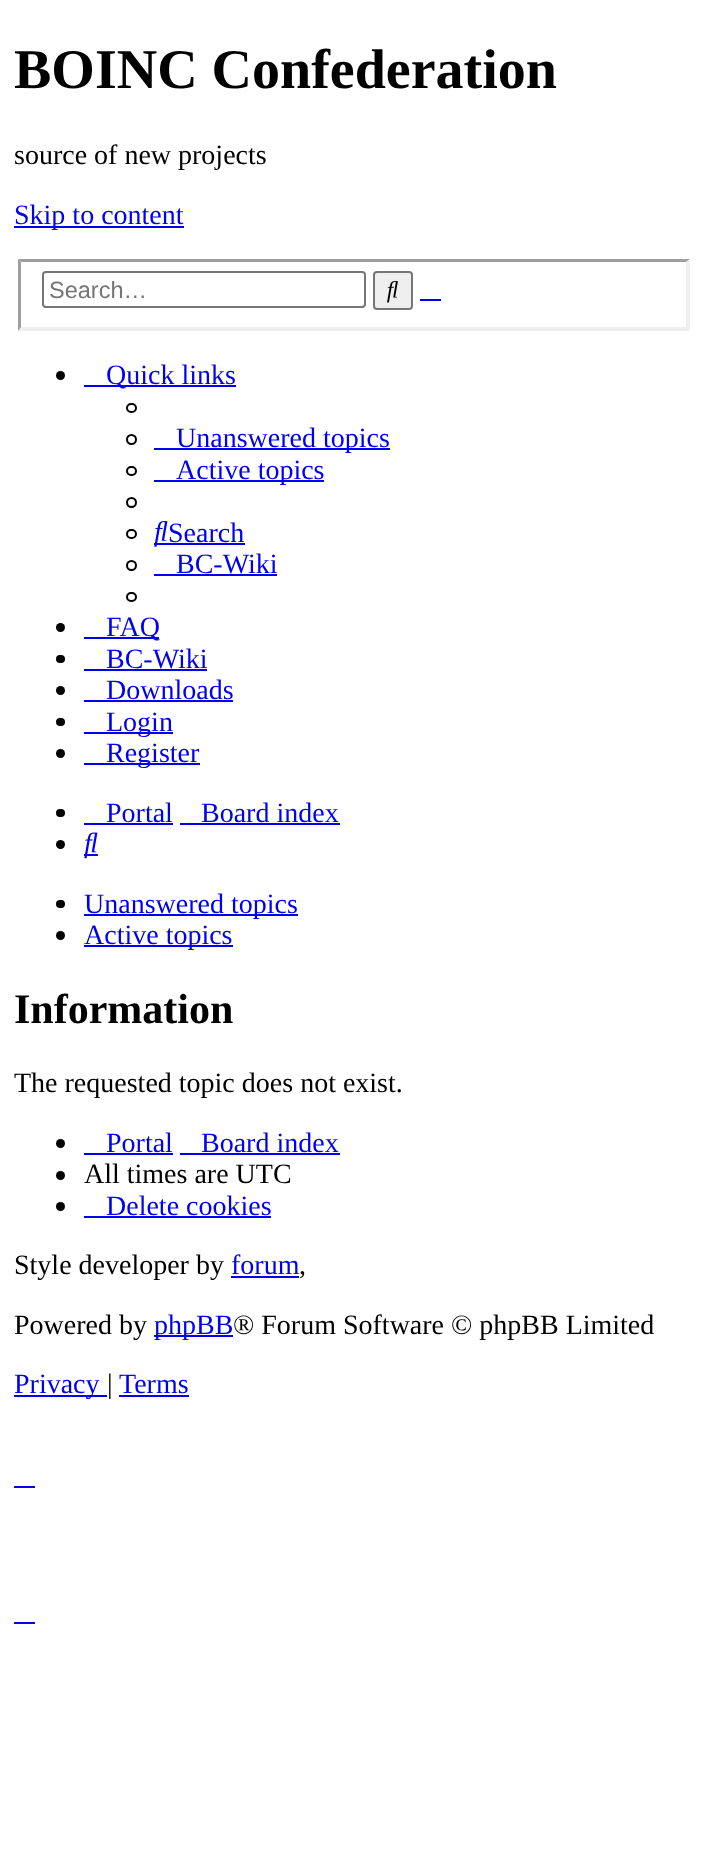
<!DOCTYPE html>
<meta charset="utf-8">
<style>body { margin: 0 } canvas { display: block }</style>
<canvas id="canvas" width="706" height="1865"></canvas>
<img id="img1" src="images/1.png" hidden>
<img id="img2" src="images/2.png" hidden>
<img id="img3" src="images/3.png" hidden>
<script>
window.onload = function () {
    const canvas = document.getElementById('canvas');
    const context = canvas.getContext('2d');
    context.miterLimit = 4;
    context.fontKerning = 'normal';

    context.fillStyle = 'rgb(255, 255, 255)';
    context.fillRect(0, 0, 706, 1865);
    context.fillStyle = 'rgb(0, 0, 238)';
    context.fillRect(14, 226, 170, 2);
    context.fillStyle = 'rgb(159, 159, 159)';
    context.beginPath();
    context.moveTo(18, 259);
    context.lineTo(690, 259);
    context.lineTo(686, 262);
    context.lineTo(21, 262);
    context.closePath();
    context.fill();
    context.fillStyle = 'rgb(239, 239, 239)';
    context.beginPath();
    context.moveTo(690, 259);
    context.lineTo(690, 331);
    context.lineTo(686, 327);
    context.lineTo(686, 262);
    context.closePath();
    context.fill();
    context.beginPath();
    context.moveTo(690, 331);
    context.lineTo(18, 331);
    context.lineTo(21, 327);
    context.lineTo(686, 327);
    context.closePath();
    context.fill();
    context.fillStyle = 'rgb(159, 159, 159)';
    context.beginPath();
    context.moveTo(18, 331);
    context.lineTo(18, 259);
    context.lineTo(21, 262);
    context.lineTo(21, 327);
    context.closePath();
    context.fill();
    context.beginPath();
    context.roundRect(43, 272, 322, 35, 3);
    context.strokeStyle = 'rgb(118, 118, 118)';
    context.lineWidth = 2;
    context.stroke();
    context.fillStyle = 'rgb(239, 239, 239)';
    context.beginPath();
    context.roundRect(374, 272, 38, 37, 3);
    context.fill();
    context.stroke();
    context.drawImage(document.getElementById('img1'), 387, 281, 11, 22);
    context.fillStyle = 'rgb(0, 0, 238)';
    context.fillRect(420, 299, 21, 2);
    context.fillStyle = 'rgb(0, 0, 0)';
    context.beginPath();
    context.arc(60.5, 375.5, 4.5, 0, 2 * Math.PI);
    context.fill();
    context.fillStyle = 'rgb(0, 0, 238)';
    context.fillRect(84, 385, 152, 2);
    context.beginPath();
    context.roundRect(127, 404, 9, 8, 4);
    context.strokeStyle = 'rgb(0, 0, 0)';
    context.stroke();
    context.beginPath();
    context.arc(131.5, 439.5, 4.5, 0, 2 * Math.PI);
    context.stroke();
    context.fillRect(154, 448, 236, 2);
    context.beginPath();
    context.roundRect(127, 467, 9, 8, 4);
    context.stroke();
    context.fillRect(154, 480, 170, 2);
    context.beginPath();
    context.arc(131.5, 502.5, 4.5, 0, 2 * Math.PI);
    context.stroke();
    context.beginPath();
    context.roundRect(127, 530, 9, 8, 4);
    context.stroke();
    context.fillRect(154, 543, 91, 2);
    context.drawImage(document.getElementById('img2'), 154, 521, 14, 26);
    context.beginPath();
    context.arc(131.5, 565.5, 4.5, 0, 2 * Math.PI);
    context.stroke();
    context.fillRect(154, 574, 123, 2);
    context.beginPath();
    context.roundRect(127, 593, 9, 8, 4);
    context.stroke();
    context.fillStyle = 'rgb(0, 0, 0)';
    context.beginPath();
    context.arc(60.5, 627.5, 4.5, 0, 2 * Math.PI);
    context.fill();
    context.fillStyle = 'rgb(0, 0, 238)';
    context.fillRect(84, 637, 75, 2);
    context.fillStyle = 'rgb(0, 0, 0)';
    context.beginPath();
    context.roundRect(56, 655, 9, 8, 4);
    context.fill();
    context.fillStyle = 'rgb(0, 0, 238)';
    context.fillRect(84, 669, 123, 2);
    context.fillStyle = 'rgb(0, 0, 0)';
    context.beginPath();
    context.arc(60.5, 690.5, 4.5, 0, 2 * Math.PI);
    context.fill();
    context.fillStyle = 'rgb(0, 0, 238)';
    context.fillRect(84, 700, 149, 2);
    context.fillStyle = 'rgb(0, 0, 0)';
    context.beginPath();
    context.roundRect(56, 718, 9, 8, 4);
    context.fill();
    context.fillStyle = 'rgb(0, 0, 238)';
    context.fillRect(84, 732, 89, 2);
    context.fillStyle = 'rgb(0, 0, 0)';
    context.beginPath();
    context.arc(60.5, 753.5, 4.5, 0, 2 * Math.PI);
    context.fill();
    context.fillStyle = 'rgb(0, 0, 238)';
    context.fillRect(84, 763, 116, 2);
    context.fillStyle = 'rgb(0, 0, 0)';
    context.beginPath();
    context.roundRect(56, 809, 9, 8, 4);
    context.fill();
    context.fillStyle = 'rgb(0, 0, 238)';
    context.fillRect(84, 823, 89, 2);
    context.fillRect(180, 823, 160, 2);
    context.fillStyle = 'rgb(0, 0, 0)';
    context.beginPath();
    context.arc(60.5, 844.5, 4.5, 0, 2 * Math.PI);
    context.fill();
    context.fillStyle = 'rgb(0, 0, 238)';
    context.fillRect(84, 854, 14, 2);
    context.drawImage(document.getElementById('img3'), 84, 832, 14, 27);
    context.fillStyle = 'rgb(0, 0, 0)';
    context.beginPath();
    context.roundRect(56, 900, 9, 8, 4);
    context.fill();
    context.fillStyle = 'rgb(0, 0, 238)';
    context.fillRect(84, 914, 214, 2);
    context.fillStyle = 'rgb(0, 0, 0)';
    context.beginPath();
    context.arc(60.5, 935.5, 4.5, 0, 2 * Math.PI);
    context.fill();
    context.fillStyle = 'rgb(0, 0, 238)';
    context.fillRect(84, 945, 149, 2);
    context.fillStyle = 'rgb(0, 0, 0)';
    context.beginPath();
    context.arc(60.5, 1143.5, 4.5, 0, 2 * Math.PI);
    context.fill();
    context.fillStyle = 'rgb(0, 0, 238)';
    context.fillRect(84, 1153, 89, 2);
    context.fillRect(180, 1153, 160, 2);
    context.fillStyle = 'rgb(0, 0, 0)';
    context.beginPath();
    context.arc(60.5, 1175.5, 4.5, 0, 2 * Math.PI);
    context.fill();
    context.beginPath();
    context.arc(60.5, 1206.5, 4.5, 0, 2 * Math.PI);
    context.fill();
    context.fillStyle = 'rgb(0, 0, 238)';
    context.fillRect(84, 1216, 187, 2);
    context.fillRect(231, 1276, 68, 2);
    context.fillRect(154, 1335, 79, 2);
    context.fillRect(14, 1395, 93, 2);
    context.fillRect(119, 1395, 70, 2);
    context.fillRect(14, 1486, 21, 2);
    context.fillRect(14, 1622, 21, 2);
    context.font = 'bold 56px Liberation Serif';
    context.fillStyle = 'rgb(0, 0, 0)';
    context.fillText('BOINC Confederation', 14, 88);
    context.font = '28px Liberation Serif';
    context.fillText('source of new projects', 14, 164);
    context.fillStyle = 'rgb(0, 0, 238)';
    context.fillText('Skip to content', 14, 224);
    context.font = '23.5px Liberation Sans';
    context.fillStyle = 'rgb(117, 117, 117)';
    context.fillText('Search…', 49, 298);
    context.font = '28px Liberation Serif';
    context.fillStyle = 'rgb(0, 0, 238)';
    context.fillText('Quick links', 106, 384);
    context.fillText('Unanswered topics', 176, 447);
    context.fillText('Active topics', 176, 479);
    context.fillText('Search', 168, 542);
    context.fillText('BC-Wiki', 176, 573);
    context.fillText('FAQ', 106, 636);
    context.fillText('BC-Wiki', 106, 668);
    context.fillText('Downloads', 106, 699);
    context.fillText('Login', 106, 731);
    context.fillText('Register', 106, 762);
    context.fillText('Portal', 106, 822);
    context.fillText('Board index', 201, 822);
    context.fillText('Unanswered topics', 84, 913);
    context.fillText('Active topics', 84, 944);
    context.font = 'bold 42px Liberation Serif';
    context.fillStyle = 'rgb(0, 0, 0)';
    context.fillText('Information', 14, 1023);
    context.font = '28px Liberation Serif';
    context.fillText('The requested topic does not exist.', 14, 1092);
    context.fillStyle = 'rgb(0, 0, 238)';
    context.fillText('Portal', 106, 1152);
    context.fillText('Board index', 201, 1152);
    context.fillStyle = 'rgb(0, 0, 0)';
    context.fillText('All times are UTC', 84, 1183);
    context.fillStyle = 'rgb(0, 0, 238)';
    context.fillText('Delete cookies', 106, 1215);
    context.fillStyle = 'rgb(0, 0, 0)';
    context.fillText('Style developer by', 14, 1274);
    context.fillStyle = 'rgb(0, 0, 238)';
    context.fillText('forum', 231, 1274);
    context.fillStyle = 'rgb(0, 0, 0)';
    context.fillText(',', 299, 1274);
    context.fillText('Powered by', 14, 1334);
    context.fillStyle = 'rgb(0, 0, 238)';
    context.fillText('phpBB', 154, 1334);
    context.fillStyle = 'rgb(0, 0, 0)';
    context.fillText('® Forum Software © phpBB Limited', 233, 1334);
    context.fillStyle = 'rgb(0, 0, 238)';
    context.fillText('Privacy', 14, 1393);
    context.fillStyle = 'rgb(0, 0, 0)';
    context.fillText('|', 107, 1393);
    context.fillStyle = 'rgb(0, 0, 238)';
    context.fillText('Terms', 119, 1393);
};
</script>
